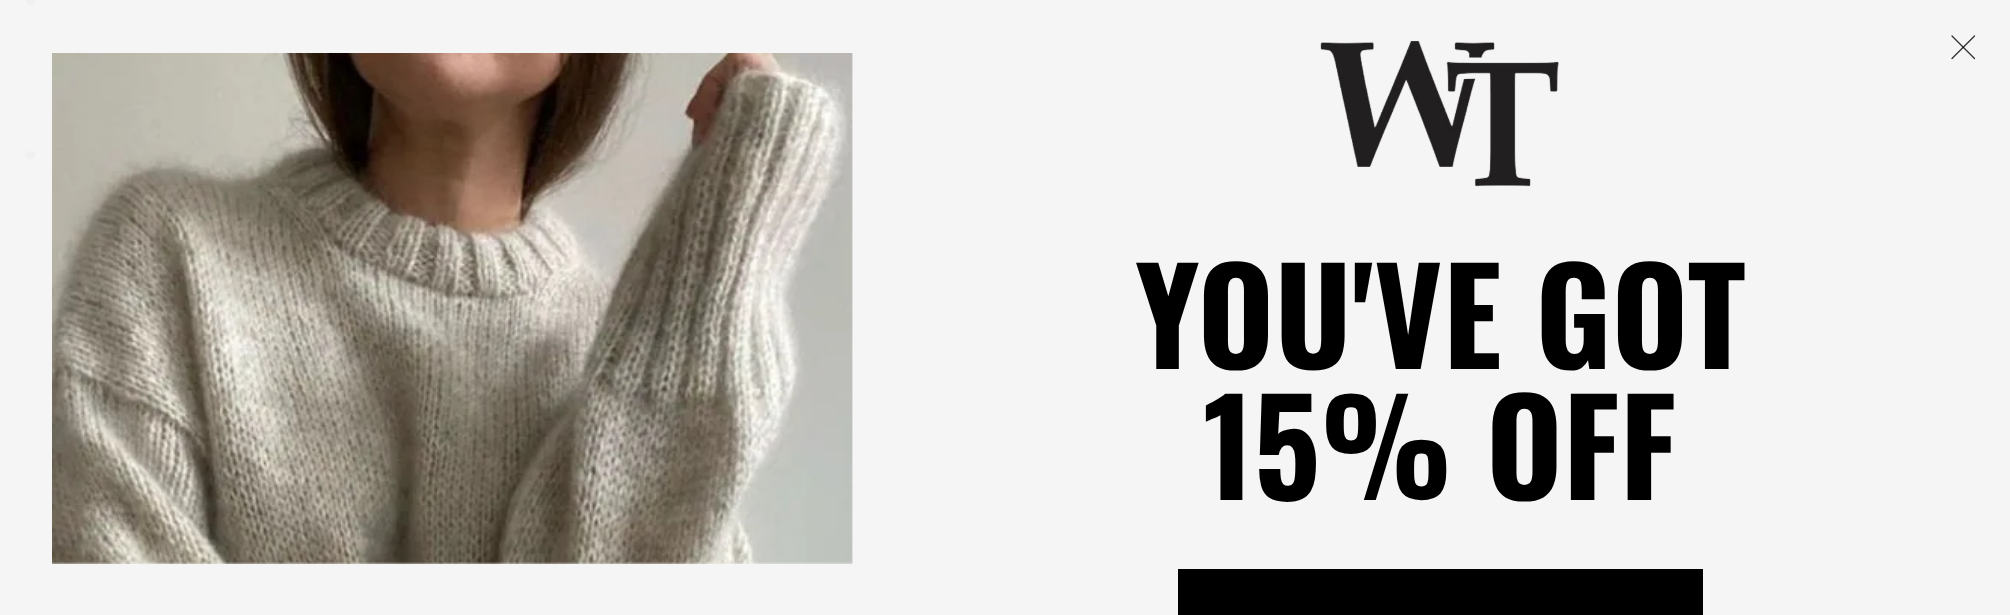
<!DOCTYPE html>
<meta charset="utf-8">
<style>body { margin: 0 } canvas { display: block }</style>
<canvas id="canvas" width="2010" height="615"></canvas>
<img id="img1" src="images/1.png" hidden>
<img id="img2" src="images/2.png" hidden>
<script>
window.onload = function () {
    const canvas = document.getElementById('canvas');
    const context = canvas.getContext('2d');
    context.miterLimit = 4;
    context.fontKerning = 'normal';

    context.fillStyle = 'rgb(245, 245, 245)';
    context.fillRect(0, 0, 2010, 615);
    context.fillStyle = 'rgb(240, 240, 240)';
    context.beginPath();
    context.roundRect(26, -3, 9, 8, 4);
    context.fill();
    context.beginPath();
    context.roundRect(26, 151, 9, 8, 4);
    context.fill();
    context.drawImage(document.getElementById('img1'), 52, 53, 801, 511);
    context.drawImage(document.getElementById('img2'), 1320, 40, 239, 147);
    context.beginPath();
    context.moveTo(1952, 36);
    context.lineTo(1974.5, 58.5);
    context.strokeStyle = 'rgb(49, 49, 49)';
    context.lineWidth = 1.3;
    context.lineCap = 'round';
    context.stroke();
    context.beginPath();
    context.moveTo(1974.5, 36);
    context.lineTo(1952, 58.5);
    context.strokeStyle = 'rgba(0, 0, 0, 0.8)';
    context.stroke();
    context.fillStyle = 'rgb(0, 0, 0)';
    context.fillRect(1178, 569, 525, 46);
    context.font = 'bold 131.25px Oswald';
    context.fillText('YOU\'VE GOT', 1135, 369);
    context.fillText('15% OFF', 1203, 500);
};
</script>
